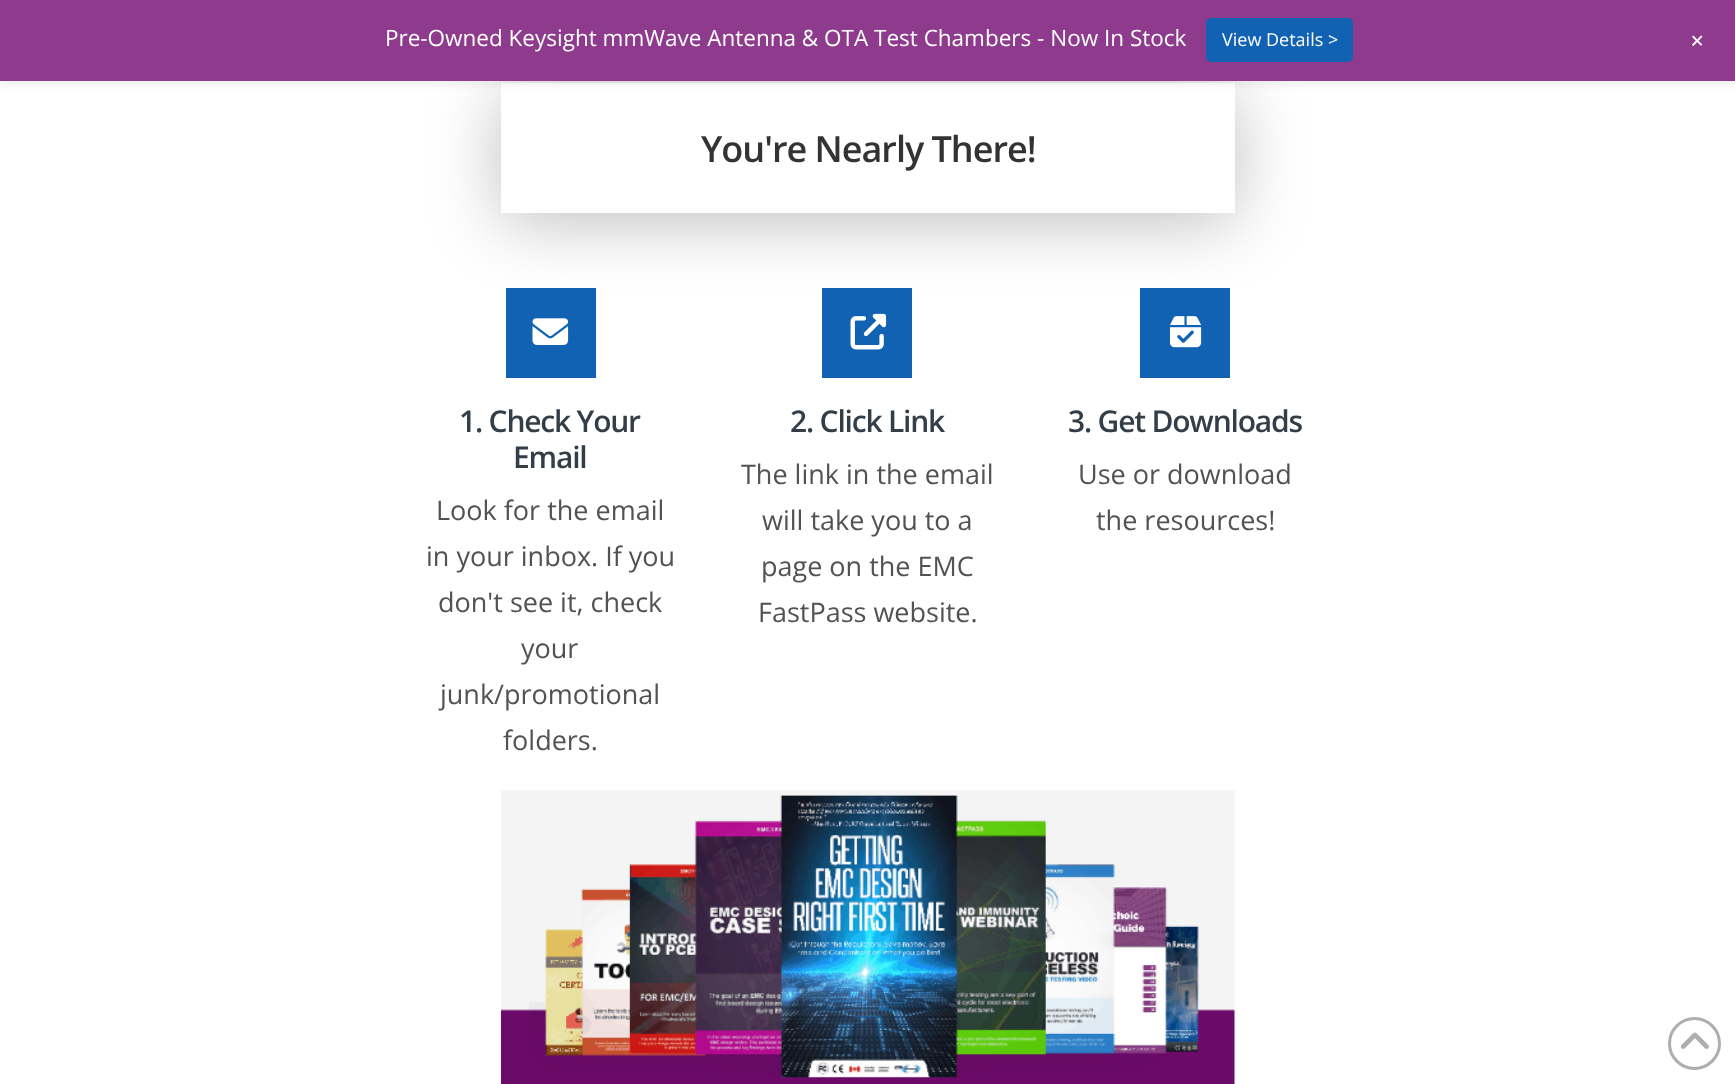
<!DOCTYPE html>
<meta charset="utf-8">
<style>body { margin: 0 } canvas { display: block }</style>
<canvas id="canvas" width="1735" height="1084"></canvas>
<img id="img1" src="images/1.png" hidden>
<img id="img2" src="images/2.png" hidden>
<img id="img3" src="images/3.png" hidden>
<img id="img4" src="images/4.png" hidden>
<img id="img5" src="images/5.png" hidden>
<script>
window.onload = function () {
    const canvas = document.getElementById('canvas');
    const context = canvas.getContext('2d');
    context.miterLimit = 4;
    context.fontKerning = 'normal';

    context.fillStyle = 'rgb(255, 255, 255)';
    context.fillRect(0, 0, 1735, 1084);
    context.fillStyle = 'rgba(0, 0, 0, 0.05)';
    context.filter = 'blur(3px)';
    context.beginPath();
    context.rect(0, 5, 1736, 81);
    context.fill();
    context.filter = 'none';
    context.save();
    context.beginPath();
    context.moveTo(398, 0);
    context.lineTo(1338, 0);
    context.lineTo(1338, 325);
    context.lineTo(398, 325);
    context.closePath();
    context.moveTo(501, 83);
    context.lineTo(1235, 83);
    context.lineTo(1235, 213);
    context.lineTo(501, 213);
    context.closePath();
    context.clip('evenodd');
    context.fillStyle = 'rgba(0, 0, 0, 0.25)';
    context.filter = 'blur(34px)';
    context.beginPath();
    context.rect(501, 92, 734, 130);
    context.fill();
    context.filter = 'none';
    context.restore();
    context.fillStyle = 'rgb(142, 59, 141)';
    context.fillRect(0, 0, 1735, 81);
    context.fillStyle = 'rgb(17, 98, 179)';
    context.beginPath();
    context.roundRect(1206, 18, 147, 44, 5);
    context.fill();
    context.fillRect(506, 288, 90, 90);
    context.drawImage(document.getElementById('img1'), 532, 318, 37, 27);
    context.fillRect(822, 288, 90, 90);
    context.drawImage(document.getElementById('img2'), 850, 313, 37, 37);
    context.fillRect(1140, 288, 90, 90);
    context.drawImage(document.getElementById('img3'), 1170, 316, 32, 32);
    context.drawImage(document.getElementById('img4'), 501, 790, 734, 294);
    context.beginPath();
    context.arc(1694.5, 1043.5, 25, 0, 2 * Math.PI);
    context.strokeStyle = 'rgb(174, 174, 174)';
    context.lineWidth = 3;
    context.stroke();
    context.drawImage(document.getElementById('img5'), 1680, 1032, 29, 17);
    context.font = '22.5px Open Sans';
    context.fillStyle = 'rgb(255, 255, 255)';
    context.fillText('Pre-Owned Keysight mmWave Antenna & OTA Test Chambers - Now In Stock', 385, 46);
    context.font = '18px Open Sans';
    context.fillText('View Details >', 1222, 46);
    context.font = '27px Open Sans';
    context.save();
    context.translate(1685, 42);
    context.rotate(45 * Math.PI / 180);
    context.fillText('+', 0, 0);
    context.restore();
    context.letterSpacing = '-1px';
    context.font = '600 36px Open Sans';
    context.fillStyle = 'rgb(51, 51, 51)';
    context.fillText('You\'re Nearly There!', 701, 162);
    context.letterSpacing = '-1.2px';
    context.font = '600 30px Open Sans';
    context.fillStyle = 'rgb(51, 62, 72)';
    context.fillText('1. Check Your', 459, 432);
    context.fillText('Email', 513, 468);
    context.letterSpacing = '0px';
    context.font = '27px Open Sans';
    context.fillStyle = 'rgb(82, 82, 82)';
    context.fillText('Look for the email', 436, 520);
    context.fillText('in your inbox. If you', 426, 566);
    context.fillText('don\'t see it, check', 438, 612);
    context.fillText('your', 521, 658);
    context.fillText('junk/promotional', 440, 704);
    context.fillText('folders.', 503, 750);
    context.letterSpacing = '-1.2px';
    context.font = '600 30px Open Sans';
    context.fillStyle = 'rgb(51, 62, 72)';
    context.fillText('2. Click Link', 790, 432);
    context.letterSpacing = '0px';
    context.font = '27px Open Sans';
    context.fillStyle = 'rgb(82, 82, 82)';
    context.fillText('The link in the email', 741, 484);
    context.fillText('will take you to a', 762, 530);
    context.fillText('page on the EMC', 761, 576);
    context.fillText('FastPass website.', 758, 622);
    context.letterSpacing = '-1.2px';
    context.font = '600 30px Open Sans';
    context.fillStyle = 'rgb(51, 62, 72)';
    context.fillText('3. Get Downloads', 1068, 432);
    context.letterSpacing = '0px';
    context.font = '27px Open Sans';
    context.fillStyle = 'rgb(82, 82, 82)';
    context.fillText('Use or download', 1078, 484);
    context.fillText('the resources!', 1096, 530);
};
</script>
